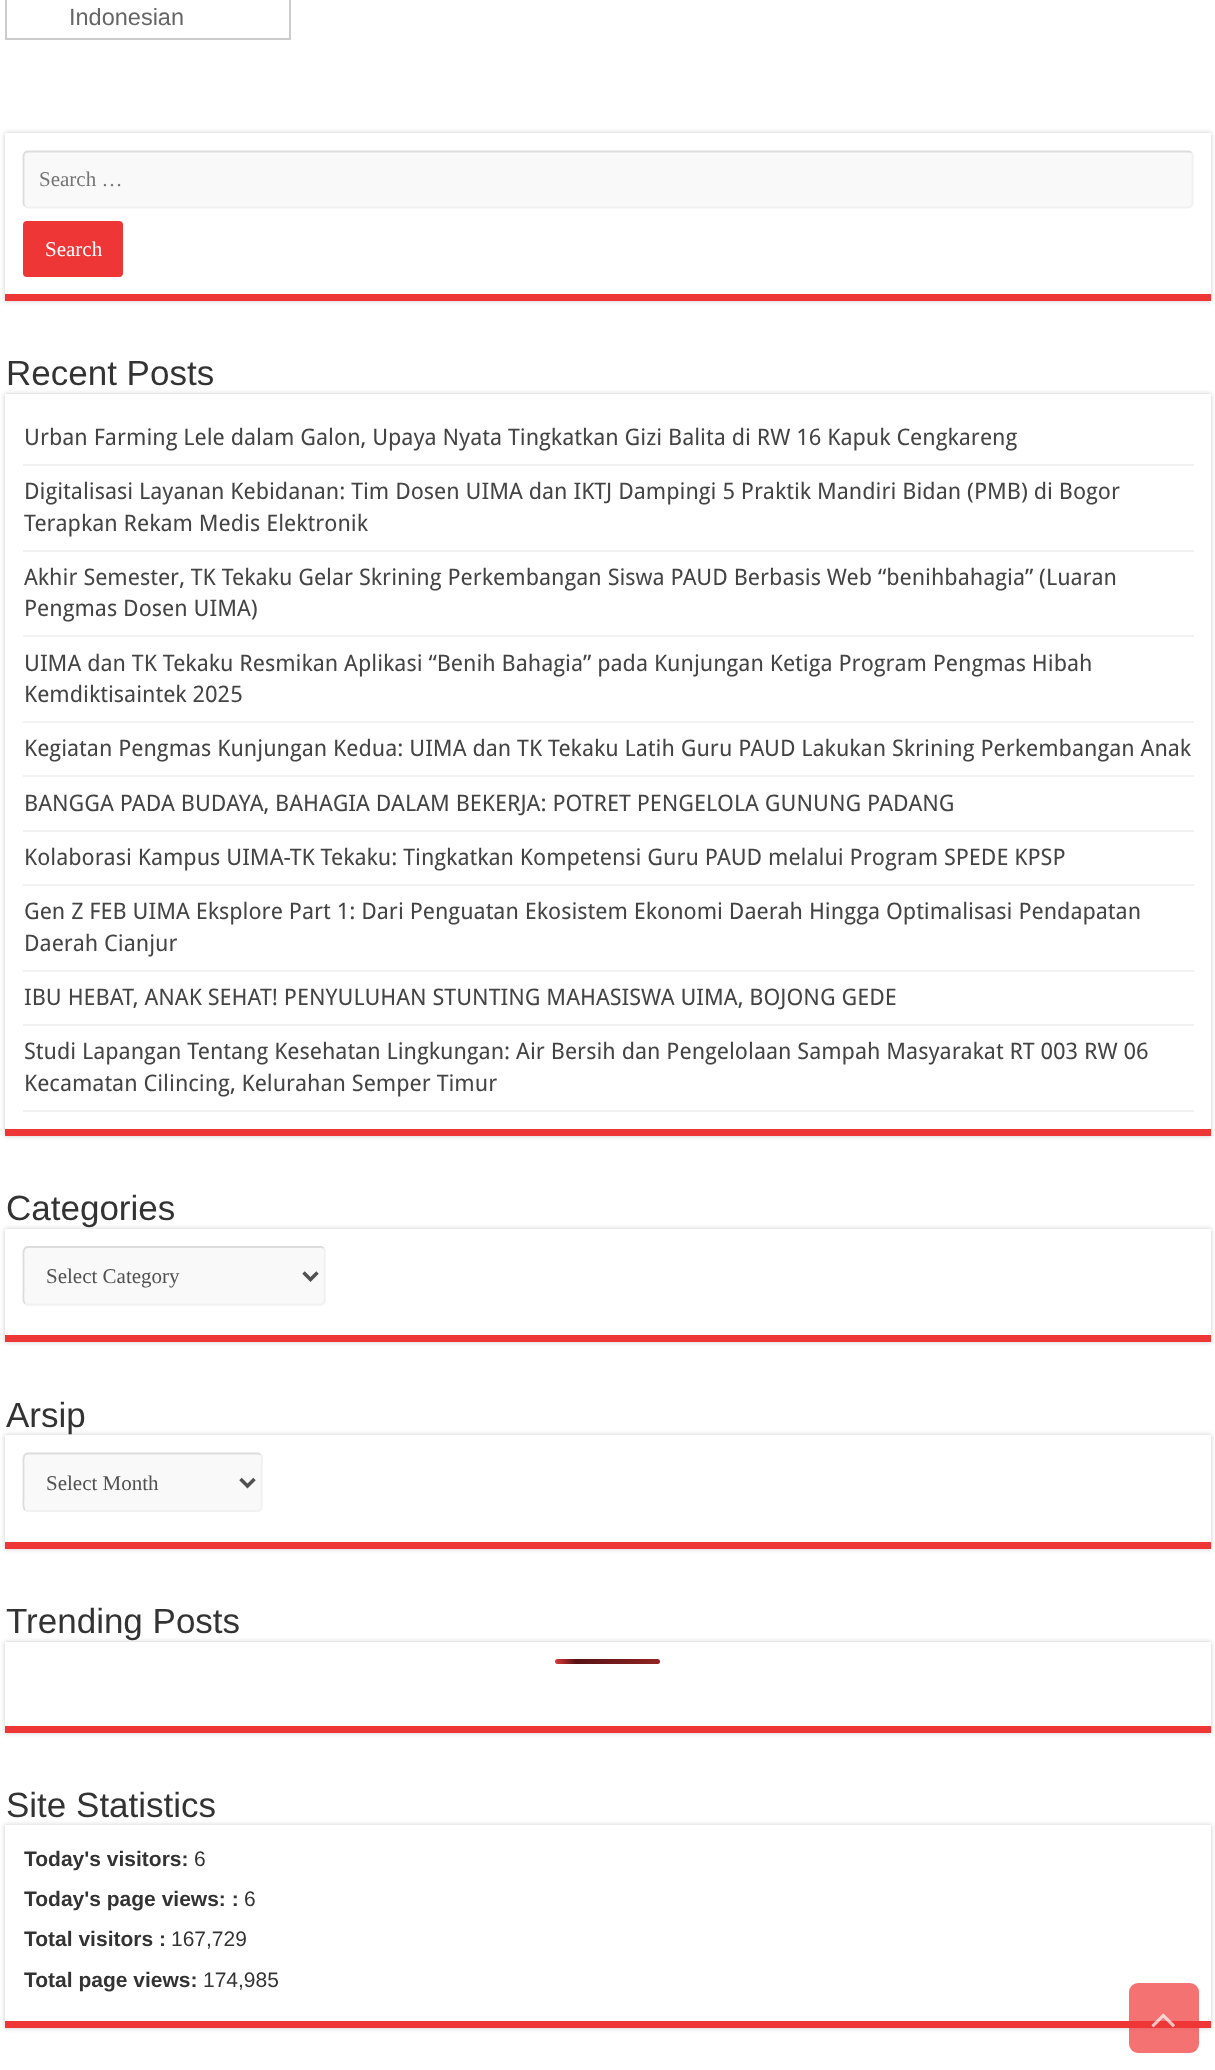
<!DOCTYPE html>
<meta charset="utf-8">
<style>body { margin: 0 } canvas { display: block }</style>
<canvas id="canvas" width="1215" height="2070"></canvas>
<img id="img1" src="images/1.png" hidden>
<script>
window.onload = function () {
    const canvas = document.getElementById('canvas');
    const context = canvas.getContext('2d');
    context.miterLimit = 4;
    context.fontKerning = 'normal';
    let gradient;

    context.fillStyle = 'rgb(255, 255, 255)';
    context.fillRect(0, 0, 1215, 2070);
    context.strokeStyle = 'rgb(204, 204, 204)';
    context.lineWidth = 2;
    context.strokeRect(6, -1, 284, 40);
    context.fillStyle = 'rgb(202, 202, 202)';
    context.filter = 'blur(2.5px)';
    context.beginPath();
    context.rect(5, 133, 1206, 168);
    context.fill();
    context.filter = 'none';
    context.fillStyle = 'rgb(255, 255, 255)';
    context.fillRect(5, 133, 1206, 161);
    context.fillStyle = 'rgb(239, 54, 54)';
    context.fillRect(5, 294, 1206, 7);
    context.fillStyle = 'rgb(249, 249, 249)';
    context.beginPath();
    context.roundRect(23, 151, 1171, 57, 5);
    context.fill();
    context.beginPath();
    context.moveTo(1191.5, 152.5);
    context.bezierCurveTo(1192, 153.5, 1192.5, 154.5, 1192.5, 156);
    context.lineTo(1192.5, 203);
    context.bezierCurveTo(1192.5, 204, 1192, 205.5, 1191.5, 206);
    context.bezierCurveTo(1190.5, 207, 1189.5, 207.5, 1188, 207.5);
    context.lineTo(28, 207.5);
    context.bezierCurveTo(27, 207.5, 25.5, 207, 25, 206);
    context.strokeStyle = 'rgb(241, 241, 241)';
    context.lineWidth = 1.8;
    context.stroke();
    context.beginPath();
    context.moveTo(25, 206);
    context.bezierCurveTo(24, 205.5, 23.5, 204, 23.5, 203);
    context.lineTo(23.5, 156);
    context.bezierCurveTo(23.5, 154.5, 24, 153.5, 25, 152.5);
    context.bezierCurveTo(25.5, 152, 27, 151.5, 28, 151.5);
    context.lineTo(1188, 151.5);
    context.bezierCurveTo(1189.5, 151.5, 1190.5, 152, 1191.5, 152.5);
    context.strokeStyle = 'rgb(221, 221, 221)';
    context.stroke();
    context.fillStyle = 'rgb(239, 54, 54)';
    context.beginPath();
    context.roundRect(23, 221, 100, 56, 4);
    context.fill();
    context.fillStyle = 'rgb(202, 202, 202)';
    context.filter = 'blur(2.5px)';
    context.beginPath();
    context.rect(5, 394, 1206, 742);
    context.fill();
    context.filter = 'none';
    context.fillStyle = 'rgb(255, 255, 255)';
    context.fillRect(5, 394, 1206, 735);
    context.fillStyle = 'rgb(239, 54, 54)';
    context.fillRect(5, 1129, 1206, 7);
    context.fillStyle = 'rgb(242, 242, 242)';
    context.fillRect(23, 464, 1171, 2);
    context.fillRect(23, 550, 1171, 2);
    context.fillRect(23, 635, 1171, 2);
    context.fillRect(23, 721, 1171, 2);
    context.fillRect(23, 775, 1171, 2);
    context.fillRect(23, 830, 1171, 2);
    context.fillRect(23, 884, 1171, 2);
    context.fillRect(23, 970, 1171, 2);
    context.fillRect(23, 1024, 1171, 2);
    context.fillRect(23, 1110, 1171, 2);
    context.fillStyle = 'rgb(202, 202, 202)';
    context.filter = 'blur(2.5px)';
    context.beginPath();
    context.rect(5, 1229, 1206, 113);
    context.fill();
    context.filter = 'none';
    context.fillStyle = 'rgb(255, 255, 255)';
    context.fillRect(5, 1229, 1206, 106);
    context.fillStyle = 'rgb(239, 54, 54)';
    context.fillRect(5, 1335, 1206, 7);
    context.fillStyle = 'rgb(249, 249, 249)';
    context.beginPath();
    context.roundRect(23, 1246, 303, 60, 5);
    context.fill();
    context.beginPath();
    context.moveTo(323.5, 1248);
    context.bezierCurveTo(326, 1250.5, 324.5, 1257.5, 324.5, 1259.5);
    context.lineTo(324.5, 1292);
    context.bezierCurveTo(324.5, 1295, 326.5, 1304.5, 320, 1304.5);
    context.lineTo(26.5, 1304.5);
    context.lineTo(25, 1303.5);
    context.strokeStyle = 'rgb(241, 241, 241)';
    context.stroke();
    context.beginPath();
    context.moveTo(25, 1303.5);
    context.bezierCurveTo(22.5, 1301, 23.5, 1294, 23.5, 1292);
    context.lineTo(23.5, 1259.5);
    context.bezierCurveTo(23.5, 1256.5, 22, 1247, 28, 1247);
    context.lineTo(321.5, 1247);
    context.lineTo(323.5, 1248);
    context.strokeStyle = 'rgb(221, 221, 221)';
    context.stroke();
    context.beginPath();
    context.moveTo(303.5, 1272.5);
    context.lineTo(310.5, 1279.5);
    context.lineTo(317.5, 1272.5);
    context.strokeStyle = 'rgb(81, 81, 81)';
    context.lineWidth = 3.5;
    context.stroke();
    context.fillStyle = 'rgb(202, 202, 202)';
    context.filter = 'blur(2.5px)';
    context.beginPath();
    context.rect(5, 1435, 1206, 114);
    context.fill();
    context.filter = 'none';
    context.fillStyle = 'rgb(255, 255, 255)';
    context.fillRect(5, 1435, 1206, 107);
    context.fillStyle = 'rgb(239, 54, 54)';
    context.fillRect(5, 1542, 1206, 7);
    context.fillStyle = 'rgb(249, 249, 249)';
    context.beginPath();
    context.roundRect(23, 1453, 240, 59, 5);
    context.fill();
    context.beginPath();
    context.moveTo(260.5, 1454.5);
    context.bezierCurveTo(263, 1457, 261.5, 1464, 261.5, 1466);
    context.lineTo(261.5, 1498.5);
    context.bezierCurveTo(261.5, 1501.5, 263.5, 1511, 257, 1511);
    context.lineTo(27, 1511);
    context.lineTo(25, 1510);
    context.strokeStyle = 'rgb(241, 241, 241)';
    context.lineWidth = 1.8;
    context.stroke();
    context.beginPath();
    context.moveTo(25, 1510);
    context.bezierCurveTo(22.5, 1507.5, 23.5, 1500.5, 23.5, 1498.5);
    context.lineTo(23.5, 1466);
    context.bezierCurveTo(23.5, 1463, 22, 1453.5, 28, 1453.5);
    context.lineTo(258, 1453.5);
    context.lineTo(260.5, 1454.5);
    context.strokeStyle = 'rgb(221, 221, 221)';
    context.stroke();
    context.beginPath();
    context.moveTo(240.5, 1479);
    context.lineTo(247.5, 1486);
    context.lineTo(254.5, 1479);
    context.strokeStyle = 'rgb(81, 81, 81)';
    context.lineWidth = 3.5;
    context.stroke();
    context.fillStyle = 'rgb(202, 202, 202)';
    context.filter = 'blur(2.5px)';
    context.beginPath();
    context.rect(5, 1642, 1206, 91);
    context.fill();
    context.filter = 'none';
    context.fillStyle = 'rgb(255, 255, 255)';
    context.fillRect(5, 1642, 1206, 84);
    context.fillStyle = 'rgb(239, 54, 54)';
    context.fillRect(5, 1726, 1206, 7);
    gradient = context.createLinearGradient(555, 1662, 765, 1662);
    gradient.addColorStop(0, 'rgb(221, 55, 55)');
    gradient.addColorStop(0.1, 'rgb(87, 19, 19)');
    gradient.addColorStop(1, 'rgb(221, 55, 55)');
    context.fillStyle = gradient;
    context.beginPath();
    context.roundRect(555, 1659, 105, 5, 2.5);
    context.fill();
    context.fillStyle = 'rgb(202, 202, 202)';
    context.filter = 'blur(2.5px)';
    context.beginPath();
    context.rect(5, 1825, 1206, 203);
    context.fill();
    context.filter = 'none';
    context.fillStyle = 'rgb(255, 255, 255)';
    context.fillRect(5, 1825, 1206, 196);
    context.fillStyle = 'rgb(239, 54, 54)';
    context.fillRect(5, 2021, 1206, 7);
    context.fillStyle = 'rgba(239, 54, 54, 0.7)';
    context.beginPath();
    context.roundRect(1129, 1983, 70, 70, 9);
    context.fill();
    context.drawImage(document.getElementById('img1'), 1151, 2013, 24, 15);
    context.font = '23.5px Liberation Sans';
    context.fillStyle = 'rgb(102, 102, 102)';
    context.fillText('Indonesian', 69, 25);
    context.font = '21px Liberation Serif';
    context.fillStyle = 'rgb(117, 117, 117)';
    context.fillText('Search …', 39, 186);
    context.fillStyle = 'rgb(255, 255, 255)';
    context.fillText('Search', 45, 256);
    context.font = '35px Liberation Sans';
    context.fillStyle = 'rgb(51, 51, 51)';
    context.fillText('Recent Posts', 6, 385);
    context.font = '22.75px Droid Sans';
    context.fillStyle = 'rgb(68, 68, 68)';
    context.fillText('Urban Farming Lele dalam Galon, Upaya Nyata Tingkatkan Gizi Balita di RW 16 Kapuk Cengkareng', 24, 445);
    context.fillText('Digitalisasi Layanan Kebidanan: Tim Dosen UIMA dan IKTJ Dampingi 5 Praktik Mandiri Bidan (PMB) di Bogor', 24, 499);
    context.fillText('Terapkan Rekam Medis Elektronik', 24, 531);
    context.fillText('Akhir Semester, TK Tekaku Gelar Skrining Perkembangan Siswa PAUD Berbasis Web “benihbahagia” (Luaran', 24, 585);
    context.fillText('Pengmas Dosen UIMA)', 24, 616);
    context.fillText('UIMA dan TK Tekaku Resmikan Aplikasi “Benih Bahagia” pada Kunjungan Ketiga Program Pengmas Hibah', 24, 671);
    context.fillText('Kemdiktisaintek 2025', 24, 702);
    context.fillText('Kegiatan Pengmas Kunjungan Kedua: UIMA dan TK Tekaku Latih Guru PAUD Lakukan Skrining Perkembangan Anak', 24, 756);
    context.fillText('BANGGA PADA BUDAYA, BAHAGIA DALAM BEKERJA: POTRET PENGELOLA GUNUNG PADANG', 24, 811);
    context.fillText('Kolaborasi Kampus UIMA-TK Tekaku: Tingkatkan Kompetensi Guru PAUD melalui Program SPEDE KPSP', 24, 865);
    context.fillText('Gen Z FEB UIMA Eksplore Part 1: Dari Penguatan Ekosistem Ekonomi Daerah Hingga Optimalisasi Pendapatan', 24, 919);
    context.fillText('Daerah Cianjur', 24, 951);
    context.fillText('IBU HEBAT, ANAK SEHAT! PENYULUHAN STUNTING MAHASISWA UIMA, BOJONG GEDE', 24, 1005);
    context.fillText('Studi Lapangan Tentang Kesehatan Lingkungan: Air Bersih dan Pengelolaan Sampah Masyarakat RT 003 RW 06', 24, 1059);
    context.fillText('Kecamatan Cilincing, Kelurahan Semper Timur', 24, 1091);
    context.font = '35px Liberation Sans';
    context.fillStyle = 'rgb(51, 51, 51)';
    context.fillText('Categories', 6, 1220);
    context.font = '21px Liberation Serif';
    context.fillStyle = 'rgb(81, 81, 81)';
    context.fillText('Select Category', 46, 1283);
    context.font = '35px Liberation Sans';
    context.fillStyle = 'rgb(51, 51, 51)';
    context.fillText('Arsip', 6, 1427);
    context.font = '21px Liberation Serif';
    context.fillStyle = 'rgb(81, 81, 81)';
    context.fillText('Select Month', 46, 1490);
    context.font = '35px Liberation Sans';
    context.fillStyle = 'rgb(51, 51, 51)';
    context.fillText('Trending Posts', 6, 1633);
    context.fillText('Site Statistics', 6, 1817);
    context.font = 'bold 21px Liberation Sans';
    context.fillText('Today\'s visitors:', 24, 1866);
    context.font = '21px Liberation Sans';
    context.fillText('6', 194, 1866);
    context.font = 'bold 21px Liberation Sans';
    context.fillText('Today\'s page views: :', 24, 1906);
    context.font = '21px Liberation Sans';
    context.fillText('6', 244, 1906);
    context.font = 'bold 21px Liberation Sans';
    context.fillText('Total visitors :', 24, 1946);
    context.font = '21px Liberation Sans';
    context.fillText('167,729', 171, 1946);
    context.font = 'bold 21px Liberation Sans';
    context.fillText('Total page views:', 24, 1987);
    context.font = '21px Liberation Sans';
    context.fillText('174,985', 203, 1987);
};
</script>
